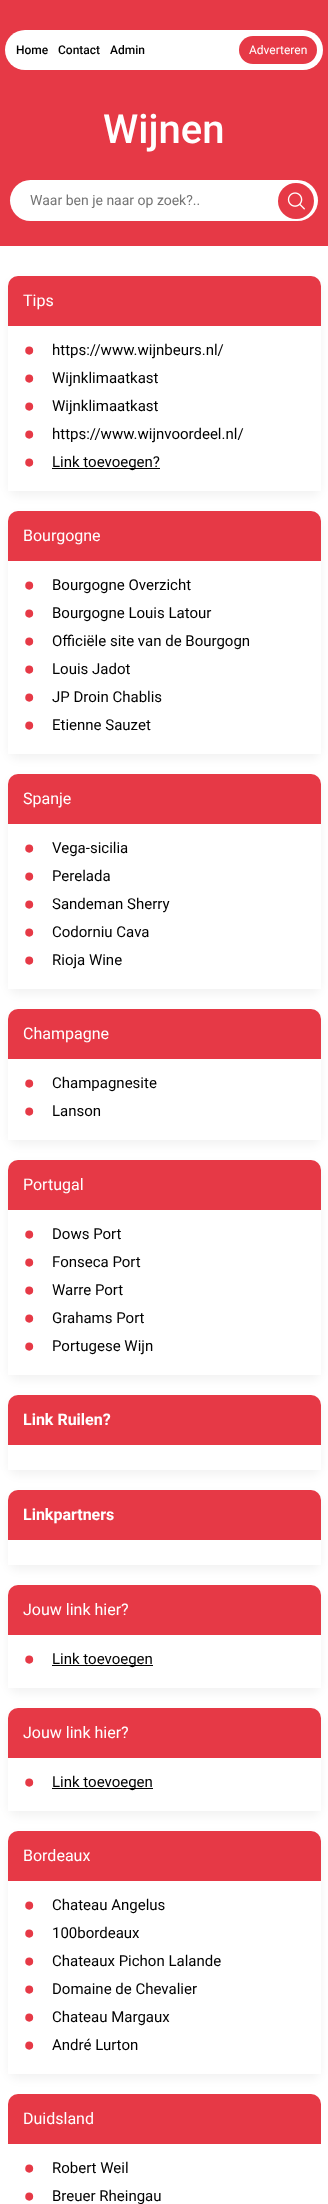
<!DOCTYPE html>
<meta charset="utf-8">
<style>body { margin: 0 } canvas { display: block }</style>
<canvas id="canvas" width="328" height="2204"></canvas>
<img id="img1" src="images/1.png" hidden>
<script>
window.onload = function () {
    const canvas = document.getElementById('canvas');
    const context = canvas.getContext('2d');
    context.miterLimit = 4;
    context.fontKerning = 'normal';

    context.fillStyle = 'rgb(255, 255, 255)';
    context.fillRect(0, 0, 328, 2204);
    context.fillStyle = 'rgb(230, 57, 70)';
    context.fillRect(0, 0, 328, 246);
    context.fillStyle = 'rgb(255, 255, 255)';
    context.beginPath();
    context.roundRect(5, 30, 318, 40, 20);
    context.fill();
    context.fillStyle = 'rgb(230, 57, 70)';
    context.beginPath();
    context.roundRect(239, 36, 78, 28, 14);
    context.fill();
    context.fillStyle = 'rgb(255, 255, 255)';
    context.beginPath();
    context.roundRect(10, 180, 308, 41, 20.5);
    context.fill();
    context.fillStyle = 'rgb(230, 57, 70)';
    context.beginPath();
    context.arc(296, 201, 18, 0, 2 * Math.PI);
    context.fill();
    context.drawImage(document.getElementById('img1'), 287, 192, 18, 18);
    context.save();
    context.beginPath();
    context.moveTo(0, 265);
    context.lineTo(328, 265);
    context.lineTo(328, 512);
    context.lineTo(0, 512);
    context.closePath();
    context.moveTo(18, 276);
    context.lineTo(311, 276);
    context.bezierCurveTo(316.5, 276, 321, 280.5, 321, 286);
    context.lineTo(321, 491);
    context.lineTo(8, 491);
    context.lineTo(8, 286);
    context.bezierCurveTo(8, 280.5, 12.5, 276, 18, 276);
    context.closePath();
    context.clip('evenodd');
    context.fillStyle = 'rgba(0, 0, 0, 0.05)';
    context.filter = 'blur(5px)';
    context.beginPath();
    context.roundRect(8, 281, 313, 215, 10);
    context.fill();
    context.filter = 'none';
    context.restore();
    context.beginPath();
    context.roundRect(8, 276, 313, 50, [10, 10, 0, 0]);
    context.fill();
    context.fillStyle = 'rgb(0, 0, 0)';
    context.fillRect(52, 468, 108, 1);
    context.save();
    context.beginPath();
    context.moveTo(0, 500);
    context.lineTo(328, 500);
    context.lineTo(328, 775);
    context.lineTo(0, 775);
    context.closePath();
    context.moveTo(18, 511);
    context.lineTo(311, 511);
    context.bezierCurveTo(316.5, 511, 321, 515.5, 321, 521);
    context.lineTo(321, 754);
    context.lineTo(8, 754);
    context.lineTo(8, 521);
    context.bezierCurveTo(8, 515.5, 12.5, 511, 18, 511);
    context.closePath();
    context.clip('evenodd');
    context.fillStyle = 'rgba(0, 0, 0, 0.05)';
    context.filter = 'blur(5px)';
    context.beginPath();
    context.roundRect(8, 516, 313, 243, 10);
    context.fill();
    context.filter = 'none';
    context.restore();
    context.fillStyle = 'rgb(230, 57, 70)';
    context.beginPath();
    context.roundRect(8, 511, 313, 50, [10, 10, 0, 0]);
    context.fill();
    context.save();
    context.beginPath();
    context.moveTo(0, 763);
    context.lineTo(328, 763);
    context.lineTo(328, 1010);
    context.lineTo(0, 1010);
    context.closePath();
    context.moveTo(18, 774);
    context.lineTo(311, 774);
    context.bezierCurveTo(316.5, 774, 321, 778.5, 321, 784);
    context.lineTo(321, 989);
    context.lineTo(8, 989);
    context.lineTo(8, 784);
    context.bezierCurveTo(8, 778.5, 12.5, 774, 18, 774);
    context.closePath();
    context.clip('evenodd');
    context.fillStyle = 'rgba(0, 0, 0, 0.05)';
    context.filter = 'blur(5px)';
    context.beginPath();
    context.roundRect(8, 779, 313, 215, 10);
    context.fill();
    context.filter = 'none';
    context.restore();
    context.beginPath();
    context.roundRect(8, 774, 313, 50, [10, 10, 0, 0]);
    context.fill();
    context.save();
    context.beginPath();
    context.moveTo(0, 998);
    context.lineTo(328, 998);
    context.lineTo(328, 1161);
    context.lineTo(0, 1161);
    context.closePath();
    context.moveTo(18, 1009);
    context.lineTo(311, 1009);
    context.bezierCurveTo(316.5, 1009, 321, 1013.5, 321, 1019);
    context.lineTo(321, 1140);
    context.lineTo(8, 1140);
    context.lineTo(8, 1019);
    context.bezierCurveTo(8, 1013.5, 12.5, 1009, 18, 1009);
    context.closePath();
    context.clip('evenodd');
    context.fillStyle = 'rgba(0, 0, 0, 0.05)';
    context.filter = 'blur(5px)';
    context.beginPath();
    context.roundRect(8, 1014, 313, 131, 10);
    context.fill();
    context.filter = 'none';
    context.restore();
    context.beginPath();
    context.roundRect(8, 1009, 313, 50, [10, 10, 0, 0]);
    context.fill();
    context.save();
    context.beginPath();
    context.moveTo(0, 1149);
    context.lineTo(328, 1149);
    context.lineTo(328, 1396);
    context.lineTo(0, 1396);
    context.closePath();
    context.moveTo(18, 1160);
    context.lineTo(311, 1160);
    context.bezierCurveTo(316.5, 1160, 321, 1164.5, 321, 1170);
    context.lineTo(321, 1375);
    context.lineTo(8, 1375);
    context.lineTo(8, 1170);
    context.bezierCurveTo(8, 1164.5, 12.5, 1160, 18, 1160);
    context.closePath();
    context.clip('evenodd');
    context.fillStyle = 'rgba(0, 0, 0, 0.05)';
    context.filter = 'blur(5px)';
    context.beginPath();
    context.roundRect(8, 1165, 313, 215, 10);
    context.fill();
    context.filter = 'none';
    context.restore();
    context.beginPath();
    context.roundRect(8, 1160, 313, 50, [10, 10, 0, 0]);
    context.fill();
    context.save();
    context.beginPath();
    context.moveTo(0, 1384);
    context.lineTo(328, 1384);
    context.lineTo(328, 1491);
    context.lineTo(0, 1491);
    context.closePath();
    context.moveTo(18, 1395);
    context.lineTo(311, 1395);
    context.bezierCurveTo(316.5, 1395, 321, 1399.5, 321, 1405);
    context.lineTo(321, 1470);
    context.lineTo(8, 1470);
    context.lineTo(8, 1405);
    context.bezierCurveTo(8, 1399.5, 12.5, 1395, 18, 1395);
    context.closePath();
    context.clip('evenodd');
    context.fillStyle = 'rgba(0, 0, 0, 0.05)';
    context.filter = 'blur(5px)';
    context.beginPath();
    context.roundRect(8, 1400, 313, 75, 10);
    context.fill();
    context.filter = 'none';
    context.restore();
    context.beginPath();
    context.roundRect(8, 1395, 313, 50, [10, 10, 0, 0]);
    context.fill();
    context.save();
    context.beginPath();
    context.moveTo(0, 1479);
    context.lineTo(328, 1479);
    context.lineTo(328, 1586);
    context.lineTo(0, 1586);
    context.closePath();
    context.moveTo(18, 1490);
    context.lineTo(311, 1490);
    context.bezierCurveTo(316.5, 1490, 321, 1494.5, 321, 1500);
    context.lineTo(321, 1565);
    context.lineTo(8, 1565);
    context.lineTo(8, 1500);
    context.bezierCurveTo(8, 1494.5, 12.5, 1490, 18, 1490);
    context.closePath();
    context.clip('evenodd');
    context.fillStyle = 'rgba(0, 0, 0, 0.05)';
    context.filter = 'blur(5px)';
    context.beginPath();
    context.roundRect(8, 1495, 313, 75, 10);
    context.fill();
    context.filter = 'none';
    context.restore();
    context.beginPath();
    context.roundRect(8, 1490, 313, 50, [10, 10, 0, 0]);
    context.fill();
    context.save();
    context.beginPath();
    context.moveTo(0, 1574);
    context.lineTo(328, 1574);
    context.lineTo(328, 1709);
    context.lineTo(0, 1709);
    context.closePath();
    context.moveTo(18, 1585);
    context.lineTo(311, 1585);
    context.bezierCurveTo(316.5, 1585, 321, 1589.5, 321, 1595);
    context.lineTo(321, 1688);
    context.lineTo(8, 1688);
    context.lineTo(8, 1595);
    context.bezierCurveTo(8, 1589.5, 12.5, 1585, 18, 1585);
    context.closePath();
    context.clip('evenodd');
    context.fillStyle = 'rgba(0, 0, 0, 0.05)';
    context.filter = 'blur(5px)';
    context.beginPath();
    context.roundRect(8, 1590, 313, 103, 10);
    context.fill();
    context.filter = 'none';
    context.restore();
    context.beginPath();
    context.roundRect(8, 1585, 313, 50, [10, 10, 0, 0]);
    context.fill();
    context.fillStyle = 'rgb(0, 0, 0)';
    context.fillRect(52, 1665, 101, 1);
    context.save();
    context.beginPath();
    context.moveTo(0, 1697);
    context.lineTo(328, 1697);
    context.lineTo(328, 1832);
    context.lineTo(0, 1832);
    context.closePath();
    context.moveTo(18, 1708);
    context.lineTo(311, 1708);
    context.bezierCurveTo(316.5, 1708, 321, 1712.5, 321, 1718);
    context.lineTo(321, 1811);
    context.lineTo(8, 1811);
    context.lineTo(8, 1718);
    context.bezierCurveTo(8, 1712.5, 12.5, 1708, 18, 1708);
    context.closePath();
    context.clip('evenodd');
    context.fillStyle = 'rgba(0, 0, 0, 0.05)';
    context.filter = 'blur(5px)';
    context.beginPath();
    context.roundRect(8, 1713, 313, 103, 10);
    context.fill();
    context.filter = 'none';
    context.restore();
    context.fillStyle = 'rgb(230, 57, 70)';
    context.beginPath();
    context.roundRect(8, 1708, 313, 50, [10, 10, 0, 0]);
    context.fill();
    context.fillStyle = 'rgb(0, 0, 0)';
    context.fillRect(52, 1788, 101, 1);
    context.save();
    context.beginPath();
    context.moveTo(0, 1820);
    context.lineTo(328, 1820);
    context.lineTo(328, 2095);
    context.lineTo(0, 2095);
    context.closePath();
    context.moveTo(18, 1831);
    context.lineTo(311, 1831);
    context.bezierCurveTo(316.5, 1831, 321, 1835.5, 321, 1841);
    context.lineTo(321, 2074);
    context.lineTo(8, 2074);
    context.lineTo(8, 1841);
    context.bezierCurveTo(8, 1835.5, 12.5, 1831, 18, 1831);
    context.closePath();
    context.clip('evenodd');
    context.fillStyle = 'rgba(0, 0, 0, 0.05)';
    context.filter = 'blur(5px)';
    context.beginPath();
    context.roundRect(8, 1836, 313, 243, 10);
    context.fill();
    context.filter = 'none';
    context.restore();
    context.fillStyle = 'rgb(230, 57, 70)';
    context.beginPath();
    context.roundRect(8, 1831, 313, 50, [10, 10, 0, 0]);
    context.fill();
    context.beginPath();
    context.roundRect(8, 2094, 313, 50, [10, 10, 0, 0]);
    context.fill();
    context.font = '500 12px Roboto';
    context.fillStyle = 'rgb(0, 0, 0)';
    context.fillText('Home', 16, 54);
    context.fillText('Contact', 58, 54);
    context.fillText('Admin', 110, 54);
    context.font = '12px Roboto';
    context.fillStyle = 'rgb(255, 255, 255)';
    context.fillText('Adverteren', 249, 54);
    context.font = '500 40px Roboto';
    context.fillText('Wijnen', 103, 143);
    context.font = '14px Roboto';
    context.fillStyle = 'rgb(117, 117, 117)';
    context.fillText('Waar ben je naar op zoek?..', 30, 205);
    context.font = '16px Roboto';
    context.fillStyle = 'rgb(255, 255, 255)';
    context.fillText('Tips', 23, 306);
    context.font = 'bold 34px Roboto';
    context.fillStyle = 'rgb(230, 57, 70)';
    context.fillText('•', 23, 363);
    context.font = '15px Roboto';
    context.fillStyle = 'rgb(0, 0, 0)';
    context.fillText('https://www.wijnbeurs.nl/', 52, 355);
    context.font = 'bold 34px Roboto';
    context.fillStyle = 'rgb(230, 57, 70)';
    context.fillText('•', 23, 391);
    context.font = '15px Roboto';
    context.fillStyle = 'rgb(0, 0, 0)';
    context.fillText('Wijnklimaatkast', 52, 383);
    context.font = 'bold 34px Roboto';
    context.fillStyle = 'rgb(230, 57, 70)';
    context.fillText('•', 23, 419);
    context.font = '15px Roboto';
    context.fillStyle = 'rgb(0, 0, 0)';
    context.fillText('Wijnklimaatkast', 52, 411);
    context.font = 'bold 34px Roboto';
    context.fillStyle = 'rgb(230, 57, 70)';
    context.fillText('•', 23, 447);
    context.font = '15px Roboto';
    context.fillStyle = 'rgb(0, 0, 0)';
    context.fillText('https://www.wijnvoordeel.nl/', 52, 439);
    context.font = 'bold 34px Roboto';
    context.fillStyle = 'rgb(230, 57, 70)';
    context.fillText('•', 23, 475);
    context.font = '15px Roboto';
    context.fillStyle = 'rgb(0, 0, 0)';
    context.fillText('Link toevoegen?', 52, 467);
    context.font = '16px Roboto';
    context.fillStyle = 'rgb(255, 255, 255)';
    context.fillText('Bourgogne', 23, 541);
    context.font = 'bold 34px Roboto';
    context.fillStyle = 'rgb(230, 57, 70)';
    context.fillText('•', 23, 598);
    context.font = '15px Roboto';
    context.fillStyle = 'rgb(0, 0, 0)';
    context.fillText('Bourgogne Overzicht', 52, 590);
    context.font = 'bold 34px Roboto';
    context.fillStyle = 'rgb(230, 57, 70)';
    context.fillText('•', 23, 626);
    context.font = '15px Roboto';
    context.fillStyle = 'rgb(0, 0, 0)';
    context.fillText('Bourgogne Louis Latour', 52, 618);
    context.font = 'bold 34px Roboto';
    context.fillStyle = 'rgb(230, 57, 70)';
    context.fillText('•', 23, 654);
    context.font = '15px Roboto';
    context.fillStyle = 'rgb(0, 0, 0)';
    context.fillText('Officiële site van de Bourgogn', 52, 646);
    context.font = 'bold 34px Roboto';
    context.fillStyle = 'rgb(230, 57, 70)';
    context.fillText('•', 23, 682);
    context.font = '15px Roboto';
    context.fillStyle = 'rgb(0, 0, 0)';
    context.fillText('Louis Jadot', 52, 674);
    context.font = 'bold 34px Roboto';
    context.fillStyle = 'rgb(230, 57, 70)';
    context.fillText('•', 23, 710);
    context.font = '15px Roboto';
    context.fillStyle = 'rgb(0, 0, 0)';
    context.fillText('JP Droin Chablis', 52, 702);
    context.font = 'bold 34px Roboto';
    context.fillStyle = 'rgb(230, 57, 70)';
    context.fillText('•', 23, 738);
    context.font = '15px Roboto';
    context.fillStyle = 'rgb(0, 0, 0)';
    context.fillText('Etienne Sauzet', 52, 730);
    context.font = '16px Roboto';
    context.fillStyle = 'rgb(255, 255, 255)';
    context.fillText('Spanje', 23, 804);
    context.font = 'bold 34px Roboto';
    context.fillStyle = 'rgb(230, 57, 70)';
    context.fillText('•', 23, 861);
    context.font = '15px Roboto';
    context.fillStyle = 'rgb(0, 0, 0)';
    context.fillText('Vega-sicilia', 52, 853);
    context.font = 'bold 34px Roboto';
    context.fillStyle = 'rgb(230, 57, 70)';
    context.fillText('•', 23, 889);
    context.font = '15px Roboto';
    context.fillStyle = 'rgb(0, 0, 0)';
    context.fillText('Perelada', 52, 881);
    context.font = 'bold 34px Roboto';
    context.fillStyle = 'rgb(230, 57, 70)';
    context.fillText('•', 23, 917);
    context.font = '15px Roboto';
    context.fillStyle = 'rgb(0, 0, 0)';
    context.fillText('Sandeman Sherry', 52, 909);
    context.font = 'bold 34px Roboto';
    context.fillStyle = 'rgb(230, 57, 70)';
    context.fillText('•', 23, 945);
    context.font = '15px Roboto';
    context.fillStyle = 'rgb(0, 0, 0)';
    context.fillText('Codorniu Cava', 52, 937);
    context.font = 'bold 34px Roboto';
    context.fillStyle = 'rgb(230, 57, 70)';
    context.fillText('•', 23, 973);
    context.font = '15px Roboto';
    context.fillStyle = 'rgb(0, 0, 0)';
    context.fillText('Rioja Wine', 52, 965);
    context.font = '16px Roboto';
    context.fillStyle = 'rgb(255, 255, 255)';
    context.fillText('Champagne', 23, 1039);
    context.font = 'bold 34px Roboto';
    context.fillStyle = 'rgb(230, 57, 70)';
    context.fillText('•', 23, 1096);
    context.font = '15px Roboto';
    context.fillStyle = 'rgb(0, 0, 0)';
    context.fillText('Champagnesite', 52, 1088);
    context.font = 'bold 34px Roboto';
    context.fillStyle = 'rgb(230, 57, 70)';
    context.fillText('•', 23, 1124);
    context.font = '15px Roboto';
    context.fillStyle = 'rgb(0, 0, 0)';
    context.fillText('Lanson', 52, 1116);
    context.font = '16px Roboto';
    context.fillStyle = 'rgb(255, 255, 255)';
    context.fillText('Portugal', 23, 1190);
    context.font = 'bold 34px Roboto';
    context.fillStyle = 'rgb(230, 57, 70)';
    context.fillText('•', 23, 1247);
    context.font = '15px Roboto';
    context.fillStyle = 'rgb(0, 0, 0)';
    context.fillText('Dows Port', 52, 1239);
    context.font = 'bold 34px Roboto';
    context.fillStyle = 'rgb(230, 57, 70)';
    context.fillText('•', 23, 1275);
    context.font = '15px Roboto';
    context.fillStyle = 'rgb(0, 0, 0)';
    context.fillText('Fonseca Port', 52, 1267);
    context.font = 'bold 34px Roboto';
    context.fillStyle = 'rgb(230, 57, 70)';
    context.fillText('•', 23, 1303);
    context.font = '15px Roboto';
    context.fillStyle = 'rgb(0, 0, 0)';
    context.fillText('Warre Port', 52, 1295);
    context.font = 'bold 34px Roboto';
    context.fillStyle = 'rgb(230, 57, 70)';
    context.fillText('•', 23, 1331);
    context.font = '15px Roboto';
    context.fillStyle = 'rgb(0, 0, 0)';
    context.fillText('Grahams Port', 52, 1323);
    context.font = 'bold 34px Roboto';
    context.fillStyle = 'rgb(230, 57, 70)';
    context.fillText('•', 23, 1359);
    context.font = '15px Roboto';
    context.fillStyle = 'rgb(0, 0, 0)';
    context.fillText('Portugese Wijn', 52, 1351);
    context.font = 'bold 16px Roboto';
    context.fillStyle = 'rgb(255, 255, 255)';
    context.fillText('Link Ruilen?', 23, 1425);
    context.fillText('Linkpartners', 23, 1520);
    context.font = '16px Roboto';
    context.fillText('Jouw link hier?', 23, 1615);
    context.font = 'bold 34px Roboto';
    context.fillStyle = 'rgb(230, 57, 70)';
    context.fillText('•', 23, 1672);
    context.font = '15px Roboto';
    context.fillStyle = 'rgb(0, 0, 0)';
    context.fillText('Link toevoegen', 52, 1664);
    context.font = '16px Roboto';
    context.fillStyle = 'rgb(255, 255, 255)';
    context.fillText('Jouw link hier?', 23, 1738);
    context.font = 'bold 34px Roboto';
    context.fillStyle = 'rgb(230, 57, 70)';
    context.fillText('•', 23, 1795);
    context.font = '15px Roboto';
    context.fillStyle = 'rgb(0, 0, 0)';
    context.fillText('Link toevoegen', 52, 1787);
    context.font = '16px Roboto';
    context.fillStyle = 'rgb(255, 255, 255)';
    context.fillText('Bordeaux', 23, 1861);
    context.font = 'bold 34px Roboto';
    context.fillStyle = 'rgb(230, 57, 70)';
    context.fillText('•', 23, 1918);
    context.font = '15px Roboto';
    context.fillStyle = 'rgb(0, 0, 0)';
    context.fillText('Chateau Angelus', 52, 1910);
    context.font = 'bold 34px Roboto';
    context.fillStyle = 'rgb(230, 57, 70)';
    context.fillText('•', 23, 1946);
    context.font = '15px Roboto';
    context.fillStyle = 'rgb(0, 0, 0)';
    context.fillText('100bordeaux', 52, 1938);
    context.font = 'bold 34px Roboto';
    context.fillStyle = 'rgb(230, 57, 70)';
    context.fillText('•', 23, 1974);
    context.font = '15px Roboto';
    context.fillStyle = 'rgb(0, 0, 0)';
    context.fillText('Chateaux Pichon Lalande', 52, 1966);
    context.font = 'bold 34px Roboto';
    context.fillStyle = 'rgb(230, 57, 70)';
    context.fillText('•', 23, 2002);
    context.font = '15px Roboto';
    context.fillStyle = 'rgb(0, 0, 0)';
    context.fillText('Domaine de Chevalier', 52, 1994);
    context.font = 'bold 34px Roboto';
    context.fillStyle = 'rgb(230, 57, 70)';
    context.fillText('•', 23, 2030);
    context.font = '15px Roboto';
    context.fillStyle = 'rgb(0, 0, 0)';
    context.fillText('Chateau Margaux', 52, 2022);
    context.font = 'bold 34px Roboto';
    context.fillStyle = 'rgb(230, 57, 70)';
    context.fillText('•', 23, 2058);
    context.font = '15px Roboto';
    context.fillStyle = 'rgb(0, 0, 0)';
    context.fillText('André Lurton', 52, 2050);
    context.font = '16px Roboto';
    context.fillStyle = 'rgb(255, 255, 255)';
    context.fillText('Duidsland', 23, 2124);
    context.font = 'bold 34px Roboto';
    context.fillStyle = 'rgb(230, 57, 70)';
    context.fillText('•', 23, 2181);
    context.font = '15px Roboto';
    context.fillStyle = 'rgb(0, 0, 0)';
    context.fillText('Robert Weil', 52, 2173);
    context.font = 'bold 34px Roboto';
    context.fillStyle = 'rgb(230, 57, 70)';
    context.fillText('•', 23, 2209);
    context.font = '15px Roboto';
    context.fillStyle = 'rgb(0, 0, 0)';
    context.fillText('Breuer Rheingau', 52, 2201);
};
</script>
